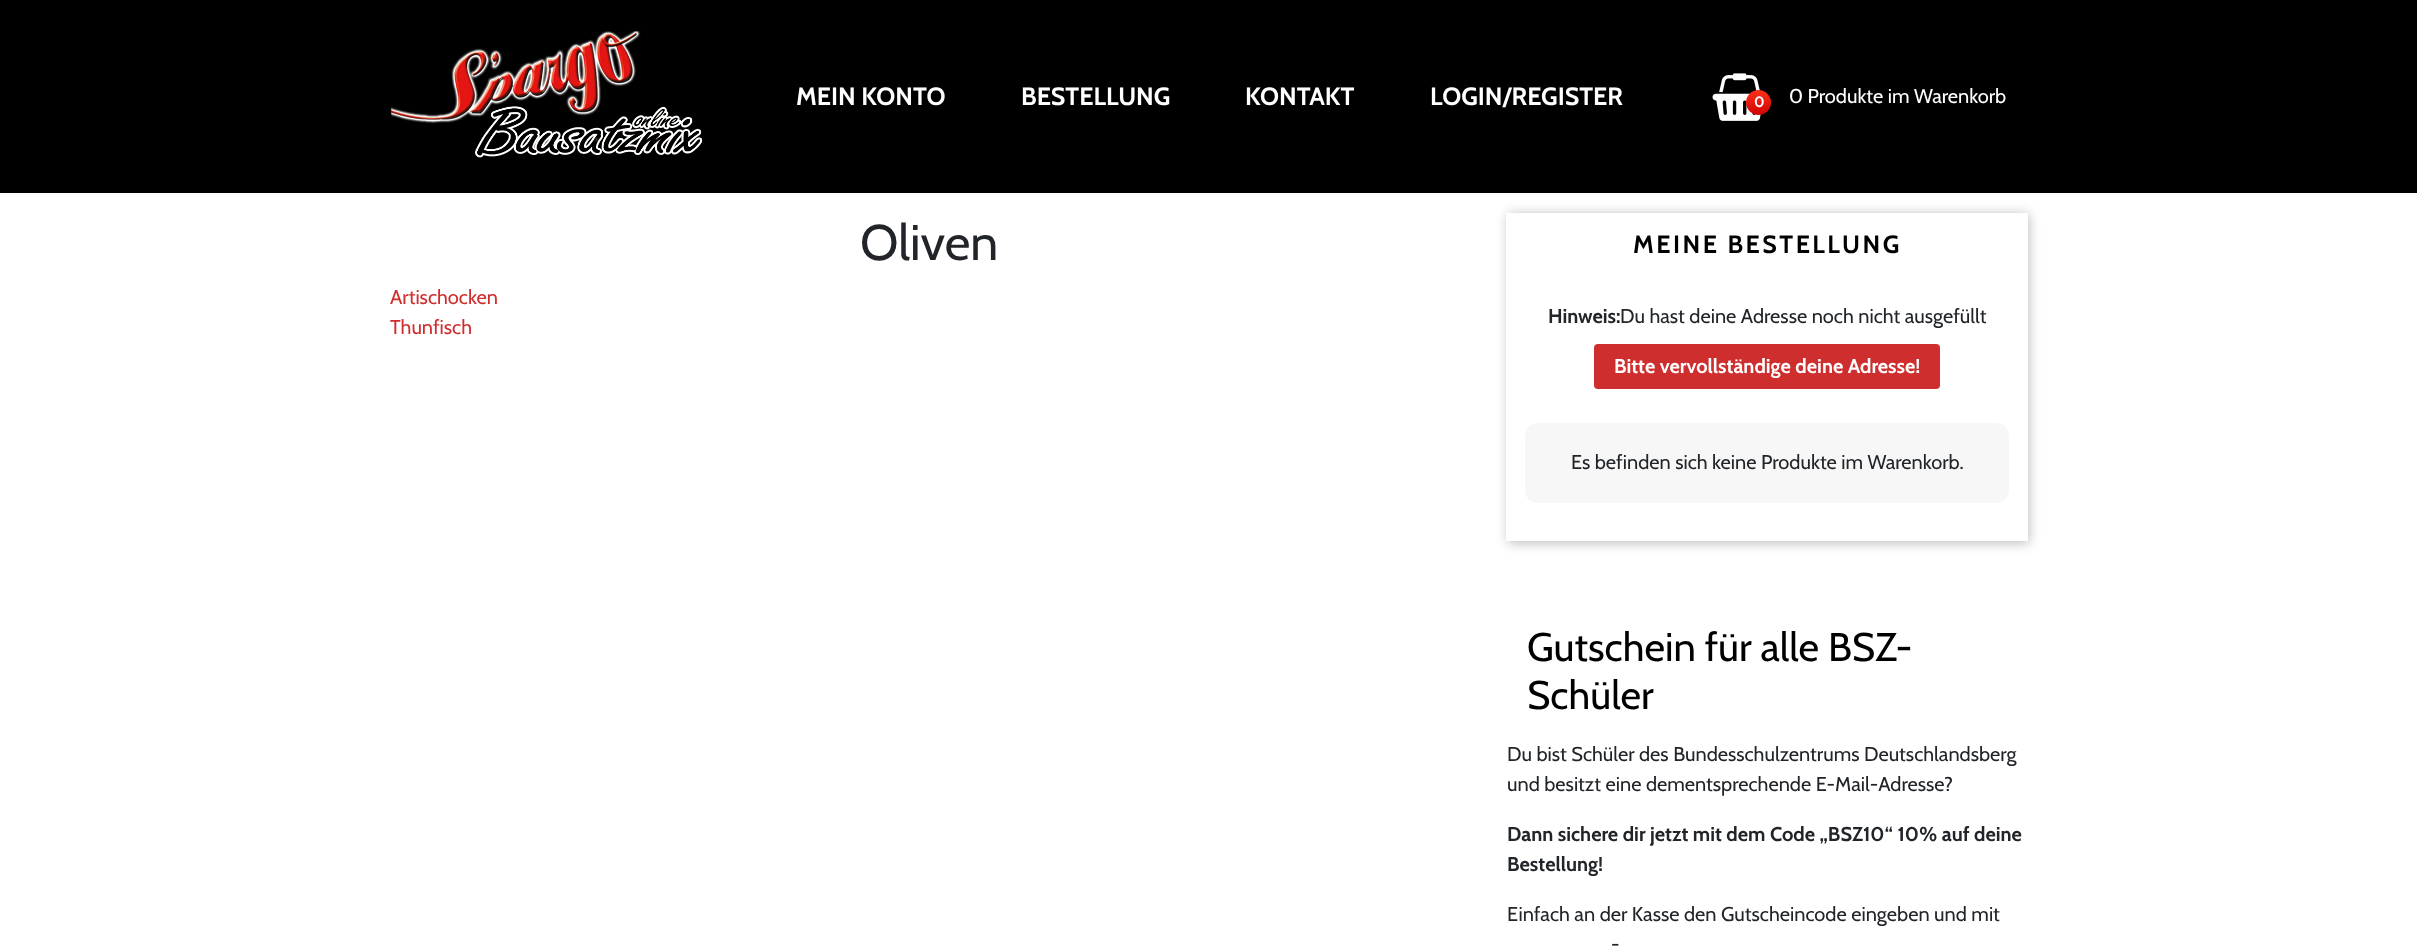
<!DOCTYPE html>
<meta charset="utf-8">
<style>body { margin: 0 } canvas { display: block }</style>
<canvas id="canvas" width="2417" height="947"></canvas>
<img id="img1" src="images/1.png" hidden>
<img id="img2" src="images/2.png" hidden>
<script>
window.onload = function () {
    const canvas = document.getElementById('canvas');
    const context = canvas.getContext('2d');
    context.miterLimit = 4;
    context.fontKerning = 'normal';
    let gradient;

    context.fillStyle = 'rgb(255, 255, 255)';
    context.fillRect(0, 0, 2417, 947);
    context.fillStyle = 'rgb(0, 0, 0)';
    context.fillRect(0, 0, 2417, 193);
    context.drawImage(document.getElementById('img1'), 391, 31, 312, 127);
    context.drawImage(document.getElementById('img2'), 1712, 73, 49, 48);
    gradient = context.createLinearGradient(1759, 90, 1759, 115);
    gradient.addColorStop(0, 'rgb(255, 48, 25)');
    gradient.addColorStop(1, 'rgb(207, 4, 4)');
    context.fillStyle = gradient;
    context.beginPath();
    context.arc(1758.5, 102.5, 12.5, 0, 2 * Math.PI);
    context.fill();
    context.fillStyle = 'rgb(187, 187, 187)';
    context.filter = 'blur(6px)';
    context.beginPath();
    context.rect(1508, 214, 521, 329);
    context.fill();
    context.filter = 'none';
    context.fillStyle = 'rgb(255, 255, 255)';
    context.fillRect(1506, 213, 522, 328);
    context.fillStyle = 'rgb(207, 46, 46)';
    context.beginPath();
    context.roundRect(1594, 344, 346, 45, 4);
    context.fill();
    context.fillStyle = 'rgb(247, 247, 247)';
    context.beginPath();
    context.roundRect(1525, 423, 484, 80, 13);
    context.fill();
    context.font = 'bold 25px Cabin';
    context.fillStyle = 'rgb(255, 255, 255)';
    context.fillText('MEIN KONTO', 796, 105);
    context.fillText('BESTELLUNG', 1021, 105);
    context.fillText('KONTAKT', 1245, 105);
    context.fillText('LOGIN/REGISTER', 1430, 105);
    context.font = 'bold 15px Cabin';
    context.fillText('0', 1754, 107);
    context.font = '20px Cabin';
    context.fillText('0 Produkte im Warenkorb', 1789, 103);
    context.font = '50px Cabin';
    context.fillStyle = 'rgb(33, 37, 41)';
    context.fillText('Oliven', 860, 260);
    context.font = '20px Cabin';
    context.fillStyle = 'rgb(207, 46, 46)';
    context.fillText('Artischocken', 390, 304);
    context.fillText('Thunfisch', 390, 334);
    context.letterSpacing = '2.5px';
    context.font = 'bold 25px Cabin';
    context.fillStyle = 'rgb(0, 0, 0)';
    context.fillText('MEINE BESTELLUNG', 1633, 253);
    context.letterSpacing = '0px';
    context.font = 'bold 20px Cabin';
    context.fillStyle = 'rgb(33, 37, 41)';
    context.fillText('Hinweis:', 1548, 323);
    context.font = '20px Cabin';
    context.fillText('Du hast deine Adresse noch nicht ausgefüllt', 1620, 323);
    context.font = 'bold 20px Cabin';
    context.fillStyle = 'rgb(255, 255, 255)';
    context.fillText('Bitte vervollständige deine Adresse!', 1614, 373);
    context.font = '20px Cabin';
    context.fillStyle = 'rgb(33, 37, 41)';
    context.fillText('Es befinden sich keine Produkte im Warenkorb.', 1571, 469);
    context.font = '40px Cabin';
    context.fillStyle = 'rgb(0, 0, 0)';
    context.fillText('Gutschein für alle BSZ-', 1527, 661);
    context.fillText('Schüler', 1527, 709);
    context.font = '20px Cabin';
    context.fillStyle = 'rgb(33, 37, 41)';
    context.fillText('Du bist Schüler des Bundesschulzentrums Deutschlandsberg', 1507, 761);
    context.fillText('und besitzt eine dementsprechende E-Mail-Adresse?', 1507, 791);
    context.font = 'bold 20px Cabin';
    context.fillText('Dann sichere dir jetzt mit dem Code „BSZ10“ 10% auf deine', 1507, 841);
    context.fillText('Bestellung!', 1507, 871);
    context.font = '20px Cabin';
    context.fillText('Einfach an der Kasse den Gutscheincode eingeben und mit', 1507, 921);
    context.fillText('-', 1611, 951);
};
</script>
